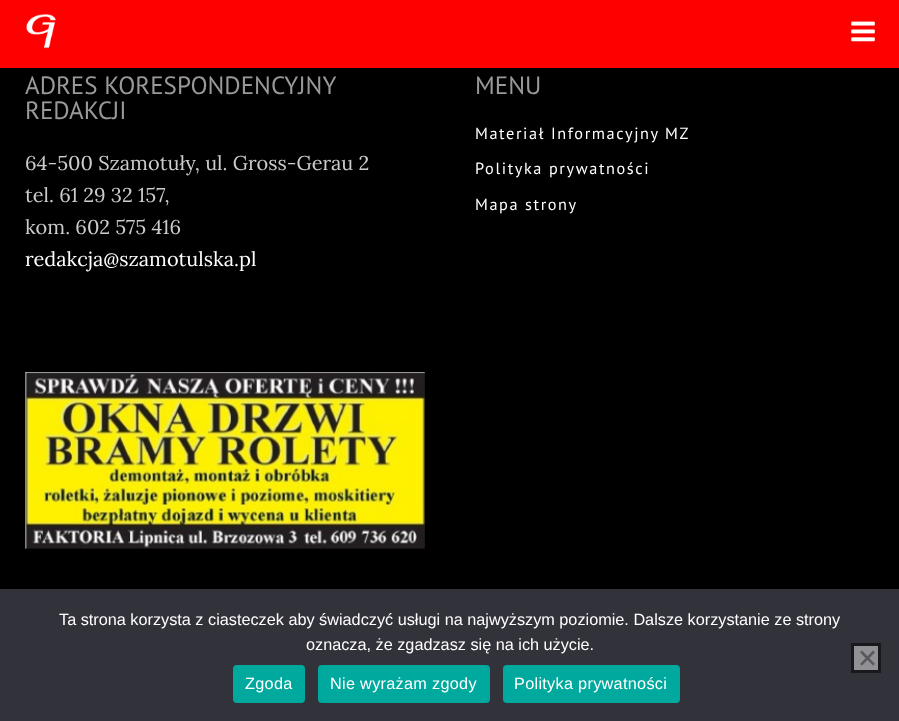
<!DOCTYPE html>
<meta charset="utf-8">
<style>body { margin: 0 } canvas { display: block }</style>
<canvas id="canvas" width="899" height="721"></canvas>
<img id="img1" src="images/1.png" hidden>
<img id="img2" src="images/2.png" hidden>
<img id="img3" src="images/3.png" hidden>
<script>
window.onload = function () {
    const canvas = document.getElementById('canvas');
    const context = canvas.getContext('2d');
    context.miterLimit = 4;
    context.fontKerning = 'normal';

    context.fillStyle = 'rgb(0, 0, 0)';
    context.fillRect(0, 0, 899, 721);
    context.fillStyle = 'rgb(255, 0, 0)';
    context.fillRect(0, 0, 899, 68);
    context.drawImage(document.getElementById('img1'), 26, 14, 30, 35);
    context.drawImage(document.getElementById('img2'), 851, 21, 24, 21);
    context.drawImage(document.getElementById('img3'), 25, 372, 400, 177);
    context.fillStyle = 'rgb(50, 50, 58)';
    context.fillRect(0, 589, 899, 132);
    context.fillStyle = 'rgb(145, 145, 149)';
    context.beginPath();
    context.rect(852.5, 644.5, 27, 27);
    context.fill();
    context.strokeStyle = 'rgb(25, 25, 29)';
    context.lineWidth = 3;
    context.stroke();
    context.fillStyle = 'rgb(89, 89, 93)';
    context.beginPath();
    context.moveTo(873, 650.5);
    context.lineTo(875, 652.5);
    context.lineTo(862, 665.5);
    context.lineTo(860, 664);
    context.closePath();
    context.fill();
    context.beginPath();
    context.moveTo(860, 652.5);
    context.lineTo(862, 650.5);
    context.lineTo(875, 664);
    context.lineTo(873, 665.5);
    context.closePath();
    context.fill();
    context.fillStyle = 'rgb(0, 169, 157)';
    context.beginPath();
    context.roundRect(233, 665, 72, 38, 4);
    context.fill();
    context.beginPath();
    context.roundRect(318, 665, 172, 38, 4);
    context.fill();
    context.beginPath();
    context.roundRect(503, 665, 177, 38, 4);
    context.fill();
    context.font = '25px PT Sans';
    context.fillStyle = 'rgb(153, 153, 153)';
    context.fillText('ADRES KORESPONDENCYJNY', 25, 94);
    context.fillText('REDAKCJI', 25, 119);
    context.font = '20px Lora';
    context.fillStyle = 'rgb(204, 204, 204)';
    context.fillText('64-500 Szamotuły, ul. Gross-Gerau 2', 25, 170);
    context.fillText('tel. 61 29 32 157,', 25, 202);
    context.fillText('kom. 602 575 416', 25, 234);
    context.fillStyle = 'rgb(255, 255, 255)';
    context.fillText('redakcja@szamotulska.pl', 25, 266);
    context.font = '25px PT Sans';
    context.fillStyle = 'rgb(153, 153, 153)';
    context.fillText('MENU', 475, 94);
    context.letterSpacing = '1.6px';
    context.font = '16.25px PT Sans';
    context.fillStyle = 'rgb(255, 255, 255)';
    context.fillText('Materiał Informacyjny MZ', 475, 139);
    context.fillText('Polityka prywatności', 475, 174);
    context.fillText('Mapa strony', 475, 210);
    context.letterSpacing = '0px';
    context.font = '16.25px Liberation Sans';
    context.fillText('Ta strona korzysta z ciasteczek aby świadczyć usługi na najwyższym poziomie. Dalsze korzystanie ze strony', 59, 625);
    context.fillText('oznacza, że zgadzasz się na ich użycie.', 306, 650);
    context.letterSpacing = '0.3px';
    context.fillText('Zgoda', 245, 689);
    context.fillText('Nie wyrażam zgody', 330, 689);
    context.fillText('Polityka prywatności', 514, 689);
};
</script>
